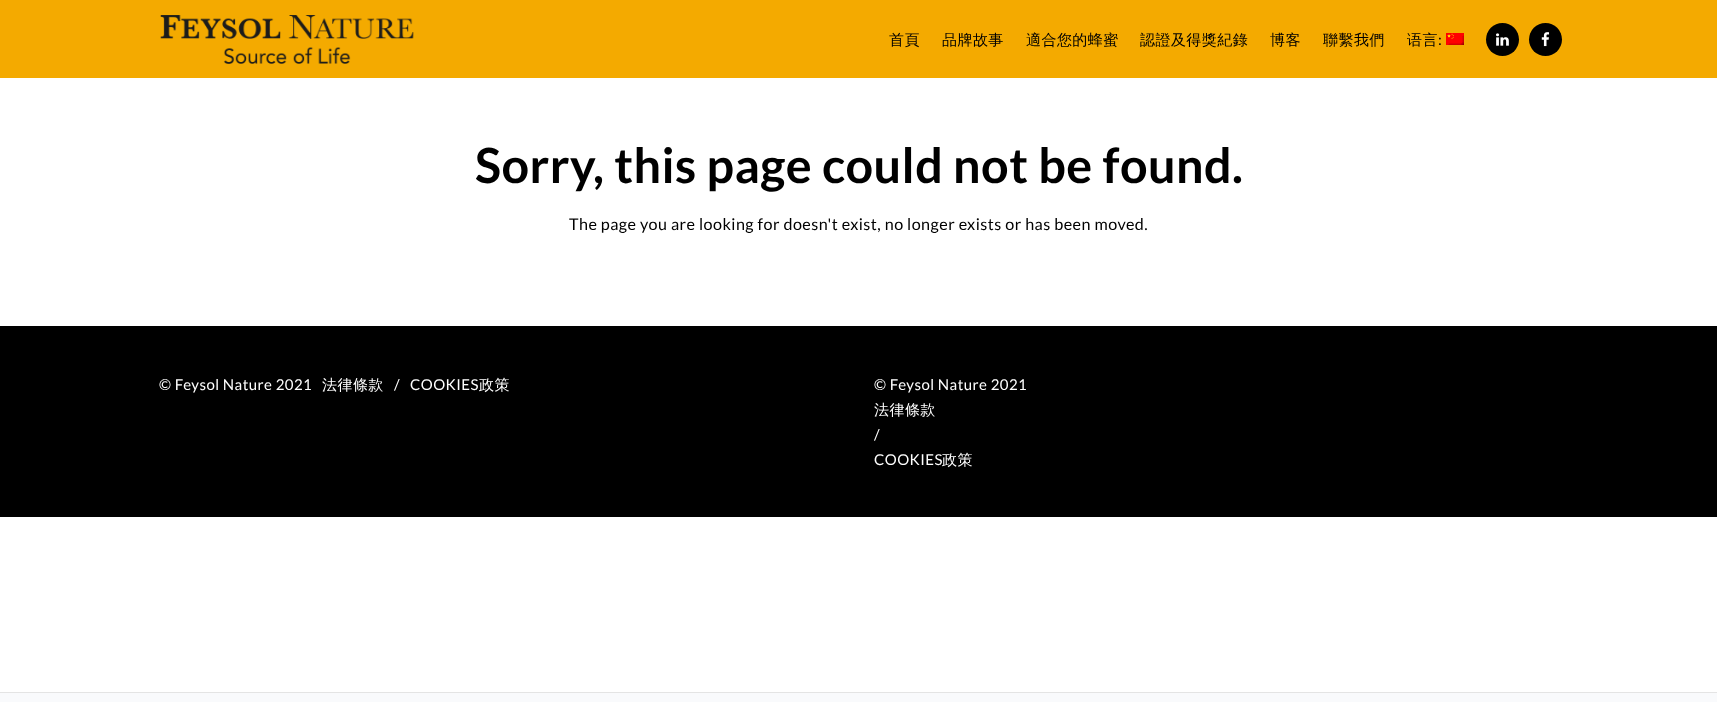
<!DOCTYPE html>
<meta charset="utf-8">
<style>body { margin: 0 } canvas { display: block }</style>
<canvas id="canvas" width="1717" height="702"></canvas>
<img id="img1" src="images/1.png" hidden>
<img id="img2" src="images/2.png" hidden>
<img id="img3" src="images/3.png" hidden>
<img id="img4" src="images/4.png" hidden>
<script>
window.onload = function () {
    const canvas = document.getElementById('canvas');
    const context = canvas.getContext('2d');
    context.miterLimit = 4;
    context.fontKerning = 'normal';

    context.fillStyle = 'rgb(255, 255, 255)';
    context.fillRect(0, 0, 1717, 702);
    context.fillStyle = 'rgb(244, 170, 0)';
    context.fillRect(0, 0, 1717, 78);
    context.drawImage(document.getElementById('img1'), 160, 15, 254, 49);
    context.drawImage(document.getElementById('img2'), 1446, 33, 18, 12);
    context.fillStyle = 'rgb(0, 0, 0)';
    context.beginPath();
    context.arc(1502.5, 39.5, 16.5, 0, 2 * Math.PI);
    context.fill();
    context.drawImage(document.getElementById('img3'), 1496, 33, 13, 13);
    context.beginPath();
    context.arc(1545.5, 39.5, 16.5, 0, 2 * Math.PI);
    context.fill();
    context.drawImage(document.getElementById('img4'), 1541, 32, 9, 15);
    context.fillRect(0, 326, 1717, 191);
    context.fillStyle = 'rgb(228, 228, 228)';
    context.fillRect(0, 692, 1717, 1);
    context.fillStyle = 'rgb(249, 250, 252)';
    context.fillRect(0, 693, 1717, 9);
    context.letterSpacing = '0.45px';
    context.font = '500 15px WenQuanYi Zen Hei';
    context.fillStyle = 'rgb(0, 0, 0)';
    context.fillText('首頁', 889, 45);
    context.fillText('品牌故事', 942, 45);
    context.fillText('適合您的蜂蜜', 1026, 45);
    context.fillText('認證及得獎紀錄', 1140, 45);
    context.fillText('博客', 1270, 45);
    context.fillText('聯繫我們', 1323, 45);
    context.fillText('语言', 1407, 45);
    context.font = '15px Lato';
    context.fillText(':', 1438, 45);
    context.font = 'bold 48.5px Lato';
    context.fillText('Sorry, this page could not be found.', 475, 183);
    context.font = '16.15px Lato';
    context.fillText('The page you are looking for doesn\'t exist, no longer exists or has been moved.', 569, 230);
    context.font = '15px Lato';
    context.fillStyle = 'rgb(255, 255, 255)';
    context.fillText('© Feysol Nature 2021', 159, 390);
    context.font = '500 15px WenQuanYi Zen Hei';
    context.fillText('法律條款', 322, 390);
    context.font = '15px Lato';
    context.fillText('/', 394, 390);
    context.fillText('COOKIES', 410, 390);
    context.font = '500 15px WenQuanYi Zen Hei';
    context.fillText('政策', 479, 390);
    context.font = '15px Lato';
    context.fillText('© Feysol Nature 2021', 874, 390);
    context.font = '500 15px WenQuanYi Zen Hei';
    context.fillText('法律條款', 874, 415);
    context.font = '15px Lato';
    context.fillText('/', 874, 440);
    context.fillText('COOKIES', 874, 465);
    context.font = '500 15px WenQuanYi Zen Hei';
    context.fillText('政策', 942, 465);
};
</script>
